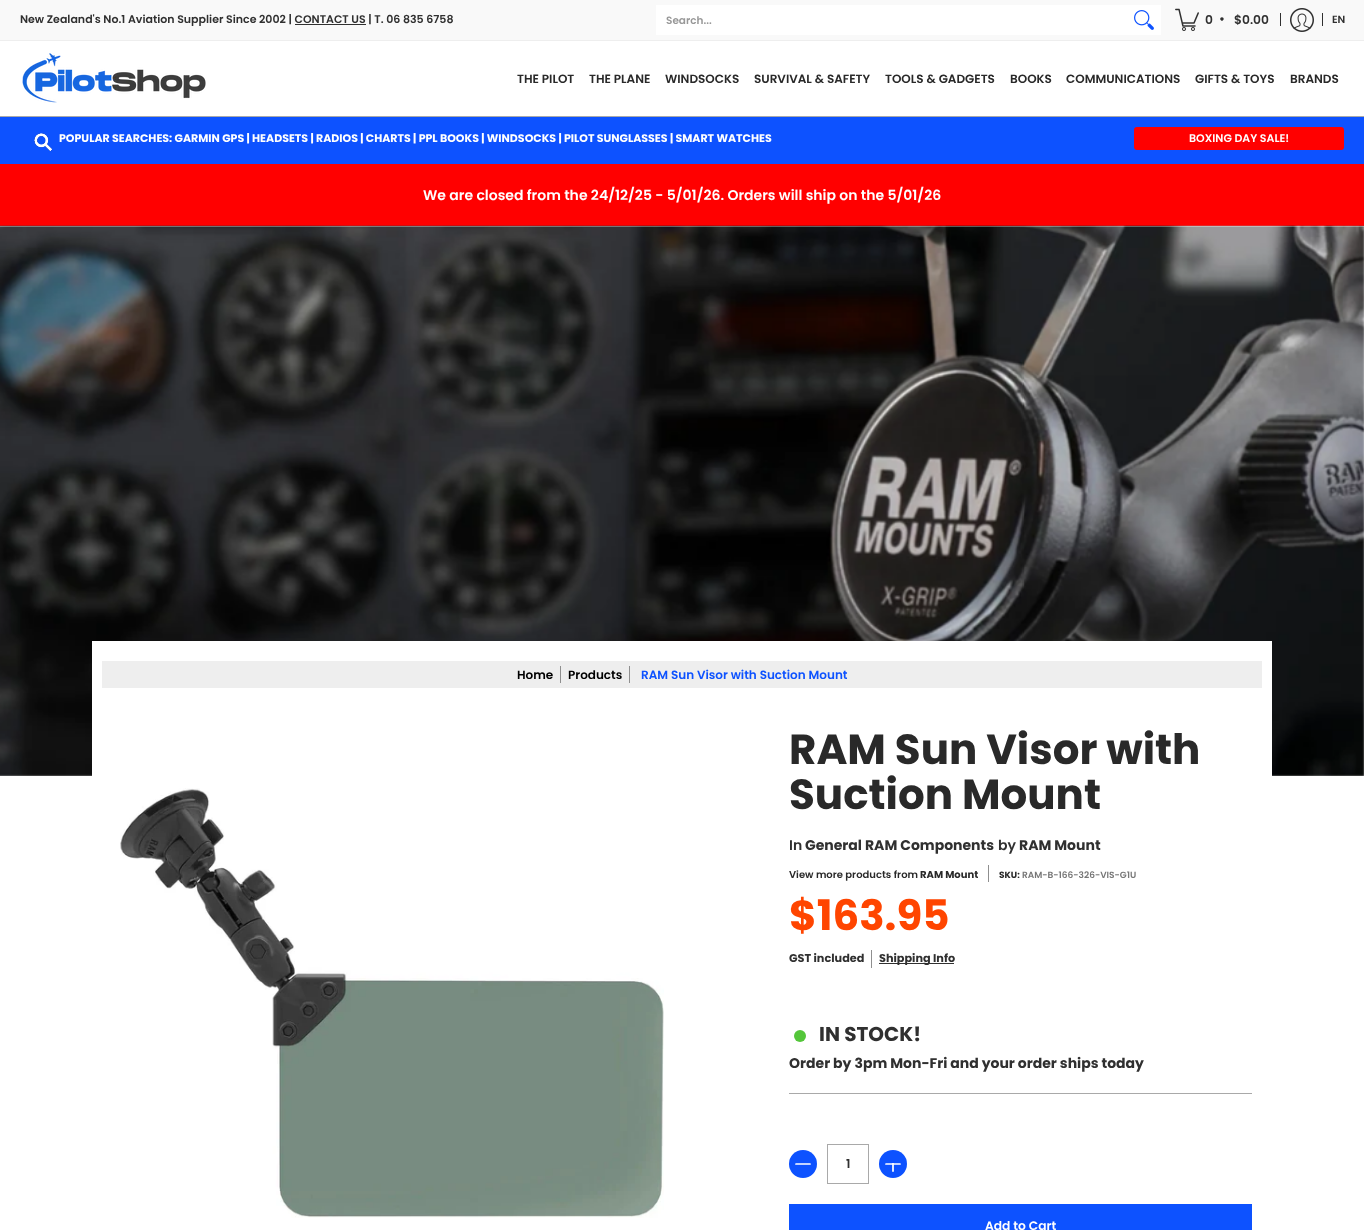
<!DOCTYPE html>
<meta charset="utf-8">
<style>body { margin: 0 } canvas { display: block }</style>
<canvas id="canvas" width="1364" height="1230"></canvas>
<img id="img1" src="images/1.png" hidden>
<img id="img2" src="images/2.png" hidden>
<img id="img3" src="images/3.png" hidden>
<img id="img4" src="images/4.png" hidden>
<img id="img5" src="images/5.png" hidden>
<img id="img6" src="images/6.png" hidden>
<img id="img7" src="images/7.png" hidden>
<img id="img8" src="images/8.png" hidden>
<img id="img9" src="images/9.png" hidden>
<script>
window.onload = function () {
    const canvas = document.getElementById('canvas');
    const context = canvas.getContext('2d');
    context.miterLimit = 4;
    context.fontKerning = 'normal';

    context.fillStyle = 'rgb(255, 255, 255)';
    context.fillRect(0, 0, 1364, 1230);
    context.fillStyle = 'rgb(249, 249, 249)';
    context.fillRect(0, 0, 1364, 40);
    context.fillStyle = 'rgb(238, 238, 238)';
    context.fillRect(0, 40, 1364, 1);
    context.fillStyle = 'rgb(48, 48, 48)';
    context.fillRect(295, 24, 71, 1);
    context.fillStyle = 'rgb(255, 255, 255)';
    context.fillRect(656, 5, 505, 30);
    context.drawImage(document.getElementById('img1'), 1134, 10, 20, 20);
    context.drawImage(document.getElementById('img2'), 1175, 8, 24, 23);
    context.fillStyle = 'rgb(48, 48, 48)';
    context.fillRect(1280, 13, 1, 13);
    context.drawImage(document.getElementById('img3'), 1290, 8, 24, 24);
    context.fillRect(1322, 13, 1, 13);
    context.fillStyle = 'rgb(169, 169, 169)';
    context.fillRect(0, 116, 1364, 1);
    context.drawImage(document.getElementById('img4'), 22, 53, 184, 50);
    context.fillStyle = 'rgb(13, 82, 255)';
    context.fillRect(0, 117, 1364, 47);
    context.drawImage(document.getElementById('img5'), 34, 133, 19, 19);
    context.fillStyle = 'rgb(255, 0, 0)';
    context.beginPath();
    context.roundRect(1134, 127, 210, 23, 3);
    context.fill();
    context.fillRect(0, 164, 1364, 62);
    context.drawImage(document.getElementById('img6'), 0, 225, 1364, 551);
    context.fillStyle = 'rgb(255, 255, 255)';
    context.fillRect(92, 641, 1180, 135);
    context.fillStyle = 'rgb(238, 238, 238)';
    context.fillRect(102, 661, 1160, 27);
    context.fillStyle = 'rgb(143, 143, 143)';
    context.fillRect(560, 666, 1, 17);
    context.fillRect(629, 666, 1, 17);
    context.drawImage(document.getElementById('img7'), 120, 788, 544, 430);
    context.fillRect(988, 865, 1, 17);
    context.fillRect(871, 950, 1, 18);
    context.fillStyle = 'rgb(48, 48, 48)';
    context.fillRect(879, 963, 75, 1);
    context.fillStyle = 'rgb(84, 198, 58)';
    context.beginPath();
    context.arc(800, 1036, 6, 0, 2 * Math.PI);
    context.fill();
    context.fillStyle = 'rgb(169, 169, 169)';
    context.fillRect(789, 1093, 463, 1);
    context.fillStyle = 'rgb(13, 82, 255)';
    context.beginPath();
    context.arc(803, 1164, 14, 0, 2 * Math.PI);
    context.fill();
    context.drawImage(document.getElementById('img8'), 795, 1163, 16, 2);
    context.strokeStyle = 'rgb(169, 169, 169)';
    context.strokeRect(827.5, 1144.5, 41, 39);
    context.beginPath();
    context.arc(893, 1164, 14, 0, 2 * Math.PI);
    context.fill();
    context.drawImage(document.getElementById('img9'), 885, 1163, 16, 9);
    context.fillRect(789, 1204, 463, 26);
    context.font = '600 11px Poppins';
    context.fillStyle = 'rgb(48, 48, 48)';
    context.fillText('New Zealand\'s No.1 Aviation Supplier Since 2002 | CONTACT US | T. 06 835 6758', 20, 23);
    context.font = '600 10.5px Poppins';
    context.fillStyle = 'rgb(152, 152, 152)';
    context.fillText('Search...', 666, 24);
    context.font = '600 12.25px Poppins';
    context.fillStyle = 'rgb(48, 48, 48)';
    context.fillText('0', 1205, 24);
    context.fillText('•', 1219, 23);
    context.fillText('$0.00', 1234, 24);
    context.font = '600 10.5px Poppins';
    context.fillText('EN', 1332, 23);
    context.font = '600 12px Poppins';
    context.fillStyle = 'rgb(41, 41, 41)';
    context.fillText('THE PILOT', 517, 83);
    context.fillText('THE PLANE', 589, 83);
    context.fillText('WINDSOCKS', 665, 83);
    context.fillText('SURVIVAL & SAFETY', 754, 83);
    context.fillText('TOOLS & GADGETS', 885, 83);
    context.fillText('BOOKS', 1010, 83);
    context.fillText('COMMUNICATIONS', 1066, 83);
    context.fillText('GIFTS & TOYS', 1195, 83);
    context.fillText('BRANDS', 1290, 83);
    context.font = 'bold 11px Poppins';
    context.fillStyle = 'rgb(255, 255, 255)';
    context.fillText('POPULAR SEARCHES: GARMIN GPS | HEADSETS | RADIOS | CHARTS | PPL BOOKS | WINDSOCKS | PILOT SUNGLASSES | SMART WATCHES', 59, 142);
    context.font = '600 11px Poppins';
    context.fillText('BOXING DAY SALE!', 1189, 142);
    context.font = '600 14px Poppins';
    context.fillText('We are closed from the 24/12/25 - 5/01/26. Orders will ship on the 5/01/26', 423, 200);
    context.font = '600 12px Poppins';
    context.fillStyle = 'rgb(0, 0, 0)';
    context.fillText('Home', 517, 679);
    context.fillText('Products', 568, 679);
    context.fillStyle = 'rgb(13, 82, 255)';
    context.fillText('RAM Sun Visor with Suction Mount', 641, 679);
    context.font = 'bold 42px Poppins';
    context.fillStyle = 'rgb(41, 41, 41)';
    context.fillText('RAM Sun Visor with', 789, 764);
    context.fillText('Suction Mount', 789, 809);
    context.font = '600 14px Poppins';
    context.fillStyle = 'rgb(48, 48, 48)';
    context.fillText('In', 789, 850);
    context.font = 'bold 14px Poppins';
    context.fillText('General RAM Components', 805, 850);
    context.font = '600 14px Poppins';
    context.fillText('by', 998, 850);
    context.font = 'bold 14px Poppins';
    context.fillText('RAM Mount', 1019, 850);
    context.font = '600 10px Poppins';
    context.fillStyle = 'rgb(41, 41, 41)';
    context.fillText('View more products from', 789, 878);
    context.font = 'bold 10px Poppins';
    context.fillText('RAM Mount', 920, 878);
    context.font = 'bold 9px Poppins';
    context.fillText('SKU:', 999, 878);
    context.font = '600 9px Poppins';
    context.fillStyle = 'rgb(119, 119, 119)';
    context.fillText('RAM-B-166-326-VIS-G1U', 1022, 878);
    context.font = 'bold 42px Poppins';
    context.fillStyle = 'rgb(255, 69, 0)';
    context.fillText('$163.95', 789, 930);
    context.font = 'bold 11.25px Poppins';
    context.fillStyle = 'rgb(48, 48, 48)';
    context.fillText('GST included', 789, 962);
    context.fillText('Shipping Info', 879, 962);
    context.font = 'bold 20px Poppins';
    context.fillText('IN STOCK!', 819, 1041);
    context.font = 'bold 14px Poppins';
    context.fillText('Order by 3pm Mon-Fri and your order ships today', 789, 1068);
    context.font = '600 12.25px Poppins';
    context.fillText('1', 846, 1168);
    context.fillStyle = 'rgb(255, 255, 255)';
    context.fillText('Add to Cart', 985, 1230);
};
</script>
